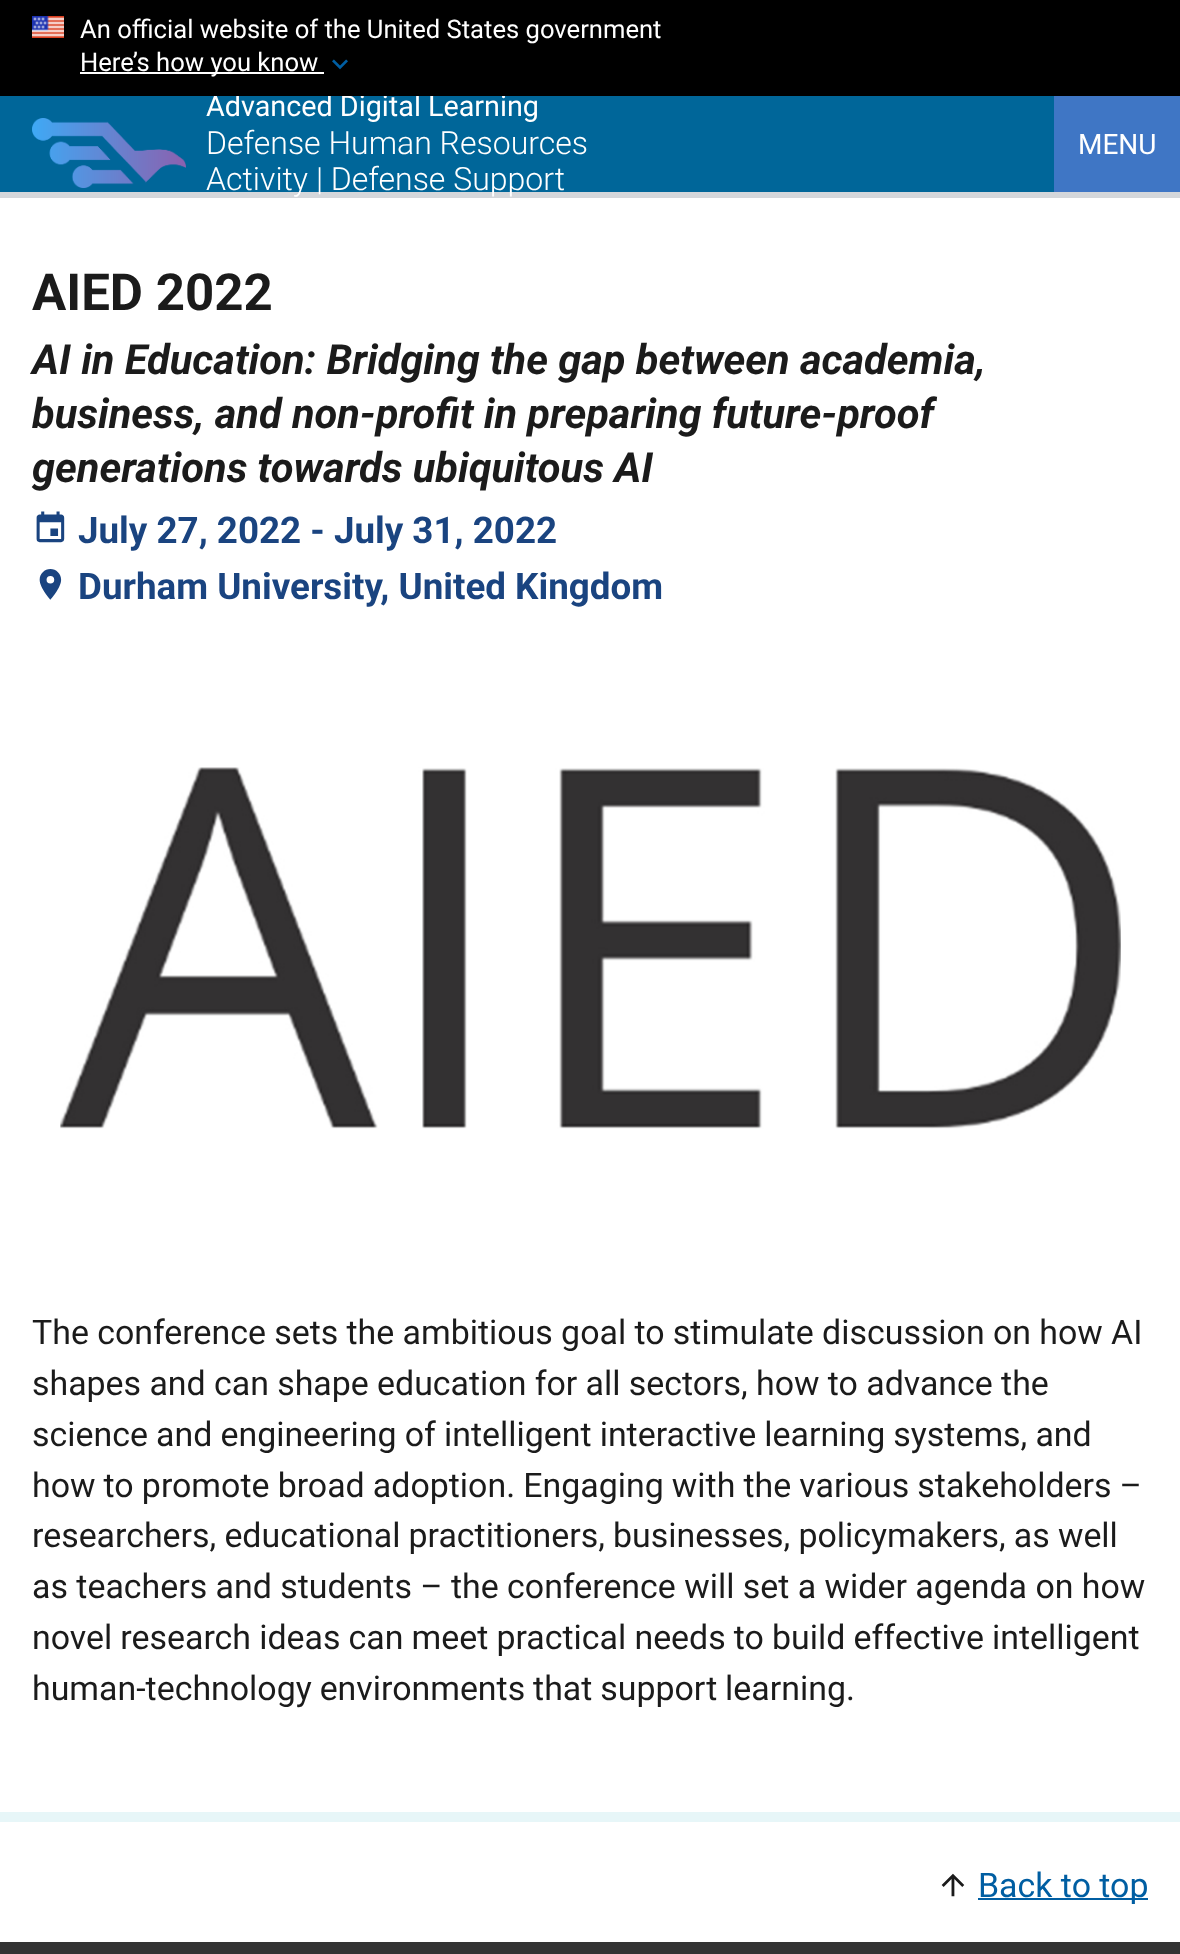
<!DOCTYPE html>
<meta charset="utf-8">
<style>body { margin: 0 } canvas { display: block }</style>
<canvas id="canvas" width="1180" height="1954"></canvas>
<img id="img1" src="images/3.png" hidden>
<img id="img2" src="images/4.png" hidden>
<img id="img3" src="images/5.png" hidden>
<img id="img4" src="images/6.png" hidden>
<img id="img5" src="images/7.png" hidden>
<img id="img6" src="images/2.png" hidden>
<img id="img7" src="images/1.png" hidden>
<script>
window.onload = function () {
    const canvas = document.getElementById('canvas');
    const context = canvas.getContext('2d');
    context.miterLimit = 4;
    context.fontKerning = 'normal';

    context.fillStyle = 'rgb(255, 255, 255)';
    context.fillRect(0, 0, 1180, 1954);
    context.fillStyle = 'rgb(212, 215, 219)';
    context.fillRect(0, 192, 1180, 6);
    context.fillStyle = 'rgb(0, 102, 153)';
    context.fillRect(0, 96, 1054, 96);
    context.drawImage(document.getElementById('img1'), 32, 118, 154, 70);
    context.fillStyle = 'rgb(63, 118, 197)';
    context.fillRect(1054, 96, 126, 96);
    context.drawImage(document.getElementById('img2'), 36, 511, 29, 32);
    context.drawImage(document.getElementById('img3'), 39, 569, 23, 31);
    context.drawImage(document.getElementById('img4'), 60, 767, 1061, 362);
    context.fillStyle = 'rgb(231, 246, 248)';
    context.fillRect(0, 1812, 1180, 10);
    context.drawImage(document.getElementById('img5'), 941, 1873, 24, 24);
    context.fillStyle = 'rgb(0, 94, 162)';
    context.fillRect(978, 1898, 170, 2);
    context.fillStyle = 'rgb(51, 51, 51)';
    context.fillRect(0, 1942, 1180, 12);
    context.font = '28.75px Roboto';
    context.fillStyle = 'rgb(255, 255, 255)';
    context.fillText('Advanced Digital Learning', 206, 116);
    context.fillStyle = 'rgb(0, 0, 0)';
    context.fillRect(0, 0, 1180, 96);
    context.drawImage(document.getElementById('img6'), 332, 59, 16, 11);
    context.fillStyle = 'rgb(255, 255, 255)';
    context.fillRect(80, 72, 244, 2);
    context.font = '25.6px Roboto';
    context.fillText('Here’s how you know', 80, 71);
    context.fillText('An official website of the United States government', 80, 38);
    context.drawImage(document.getElementById('img7'), 32, 16, 32, 22);
    context.font = '300 32px Roboto';
    context.fillText('Defense Human Resources', 206, 154);
    context.fillText('Activity | Defense Support', 206, 190);
    context.font = '28px Roboto';
    context.fillText('MENU', 1078, 154);
    context.font = 'bold 51px Roboto';
    context.fillStyle = 'rgb(27, 27, 27)';
    context.fillText('AIED 2022', 32, 310);
    context.font = 'italic bold 41.6px Roboto';
    context.fillText('AI in Education: Bridging the gap between academia,', 32, 374);
    context.fillText('business, and non-profit in preparing future-proof', 32, 428);
    context.fillText('generations towards ubiquitous AI', 32, 482);
    context.font = 'bold 36.75px Roboto';
    context.fillStyle = 'rgb(26, 68, 128)';
    context.fillText('July 27, 2022 - July 31, 2022', 78, 543);
    context.fillText('Durham University, United Kingdom', 78, 599);
    context.wordSpacing = '-0.1px';
    context.font = '33.9px Roboto';
    context.fillStyle = 'rgb(27, 27, 27)';
    context.fillText('The conference sets the ambitious goal to stimulate discussion on how AI', 32, 1344);
    context.fillText('shapes and can shape education for all sectors, how to advance the', 32, 1395);
    context.wordSpacing = '-0.25px';
    context.fillText('science and engineering of intelligent interactive learning systems, and', 32, 1446);
    context.fillText('how to promote broad adoption. Engaging with the various stakeholders –', 32, 1497);
    context.fillText('researchers, educational practitioners, businesses, policymakers, as well', 32, 1547);
    context.wordSpacing = '0px';
    context.fillText('as teachers and students – the conference will set a wider agenda on how', 32, 1598);
    context.wordSpacing = '-0.25px';
    context.fillText('novel research ideas can meet practical needs to build effective intelligent', 32, 1649);
    context.wordSpacing = '-0.5px';
    context.fillText('human-technology environments that support learning.', 32, 1700);
    context.wordSpacing = '0px';
    context.fillStyle = 'rgb(0, 94, 162)';
    context.fillText('Back to top', 978, 1897);
};
</script>
